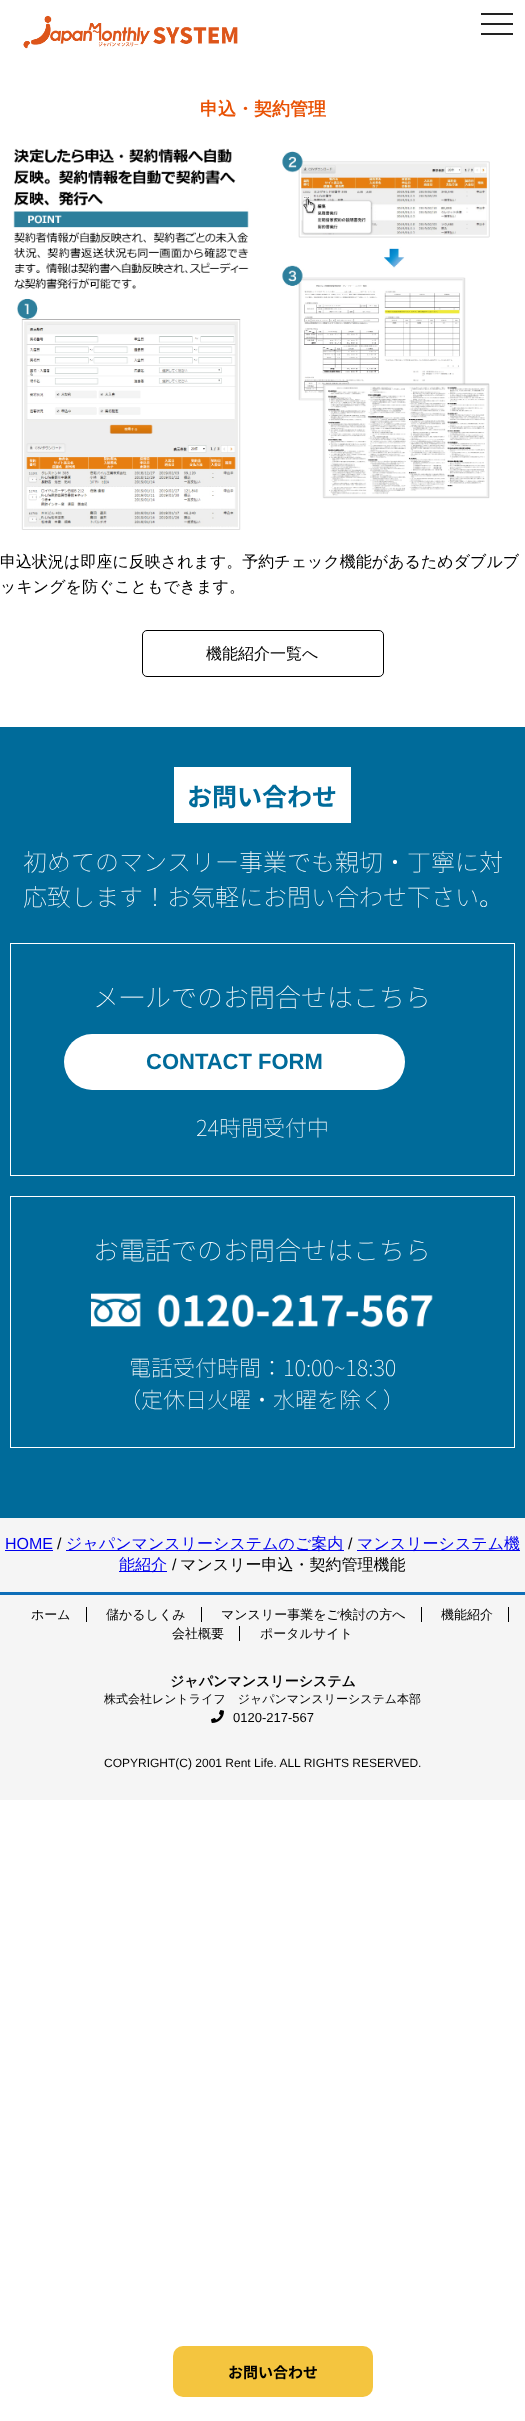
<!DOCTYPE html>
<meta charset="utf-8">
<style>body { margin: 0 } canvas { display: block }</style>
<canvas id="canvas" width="525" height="2421"></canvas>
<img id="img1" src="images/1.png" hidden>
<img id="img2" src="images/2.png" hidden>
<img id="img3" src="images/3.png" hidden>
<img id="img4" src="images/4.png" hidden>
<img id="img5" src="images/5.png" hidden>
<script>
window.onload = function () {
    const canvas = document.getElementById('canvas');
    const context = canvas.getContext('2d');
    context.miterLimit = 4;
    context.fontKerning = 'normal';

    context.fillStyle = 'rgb(255, 255, 255)';
    context.fillRect(0, 0, 525, 2421);
    context.drawImage(document.getElementById('img1'), 23, 15, 215, 34);
    context.fillStyle = 'rgb(34, 34, 34)';
    context.fillRect(481, 23, 32, 2);
    context.fillRect(481, 13, 32, 2);
    context.fillRect(481, 33, 32, 2);
    context.drawImage(document.getElementById('img2'), 13, 148, 236, 382);
    context.drawImage(document.getElementById('img3'), 282, 151, 208, 348);
    context.beginPath();
    context.roundRect(142.5, 630.5, 241, 46, 4.5);
    context.strokeStyle = 'rgb(0, 0, 0)';
    context.stroke();
    context.fillStyle = 'rgb(0, 107, 154)';
    context.fillRect(0, 727, 525, 791);
    context.fillStyle = 'rgb(255, 255, 255)';
    context.fillRect(174, 767, 177, 56);
    context.strokeStyle = 'rgb(255, 255, 255)';
    context.strokeRect(10.5, 943.5, 504, 232);
    context.beginPath();
    context.roundRect(64, 1034, 341, 56, 28);
    context.fill();
    context.strokeRect(10.5, 1196.5, 504, 251);
    context.drawImage(document.getElementById('img4'), 91, 1293, 342, 35);
    context.fillStyle = 'rgb(245, 245, 245)';
    context.fillRect(0, 1518, 525, 74);
    context.fillStyle = 'rgb(0, 0, 238)';
    context.fillRect(5, 1550, 48, 1);
    context.fillRect(66, 1550, 278, 1);
    context.fillRect(357, 1550, 163, 1);
    context.fillRect(119, 1571, 48, 1);
    context.fillStyle = 'rgb(245, 245, 245)';
    context.fillRect(0, 1595, 525, 205);
    context.fillStyle = 'rgb(14, 110, 184)';
    context.fillRect(0, 1592, 525, 3);
    context.fillStyle = 'rgb(0, 0, 0)';
    context.fillRect(86, 1607, 1, 15);
    context.fillRect(201, 1607, 1, 15);
    context.fillRect(421, 1607, 1, 15);
    context.fillRect(508, 1607, 1, 15);
    context.fillRect(239, 1626, 1, 15);
    context.drawImage(document.getElementById('img5'), 211, 1710, 13, 13);
    context.fillStyle = 'rgb(244, 197, 63)';
    context.beginPath();
    context.roundRect(173, 2346, 200, 51, 10);
    context.fill();
    context.font = 'bold 18px WenQuanYi Zen Hei';
    context.fillStyle = 'rgb(233, 82, 5)';
    context.fillText('申込・契約管理', 200, 115);
    context.font = '500 16px WenQuanYi Zen Hei';
    context.fillStyle = 'rgb(0, 0, 0)';
    context.fillText('申込状況は即座に反映されます。予約チェック機能があるためダブルブ', 0, 567);
    context.fillText('ッキングを防ぐこともできます。', 0, 592);
    context.fillText('機能紹介一覧へ', 206, 659);
    context.font = 'bold 25px Noto Sans JP';
    context.fillStyle = 'rgb(0, 107, 154)';
    context.fillText('お問い合わせ', 187, 806);
    context.font = '100 24px Noto Sans JP';
    context.fillStyle = 'rgb(255, 255, 255)';
    context.fillText('初めてのマンスリー事業でも親切・丁寧に対', 23, 871);
    context.fillText('応致します！お気軽にお問い合わせ下さい。', 23, 906);
    context.font = '100 26px Noto Sans JP';
    context.fillText('メ―ルでのお問合せはこちら', 93, 1007);
    context.font = 'bold 22px Liberation Sans';
    context.fillStyle = 'rgb(0, 107, 154)';
    context.fillText('CONTACT FORM', 146, 1069);
    context.font = '100 22px Noto Sans JP';
    context.fillStyle = 'rgb(255, 255, 255)';
    context.fillText('24時間受付中', 196, 1136);
    context.font = '100 26px Noto Sans JP';
    context.fillText('お電話でのお問合せはこちら', 93, 1260);
    context.font = '100 22px Noto Sans JP';
    context.fillText('電話受付時間：10:00~18:30', 129, 1376);
    context.fillText('（定休日火曜・水曜を除く）', 119, 1408);
    context.font = '16px Liberation Sans';
    context.fillStyle = 'rgb(0, 0, 238)';
    context.fillText('HOME', 5, 1549);
    context.fillStyle = 'rgb(0, 0, 0)';
    context.fillText('/', 57, 1549);
    context.font = '500 16px WenQuanYi Zen Hei';
    context.fillStyle = 'rgb(0, 0, 238)';
    context.fillText('ジャパンマンスリーシステムのご案内', 66, 1549);
    context.font = '16px Liberation Sans';
    context.fillStyle = 'rgb(0, 0, 0)';
    context.fillText('/', 348, 1549);
    context.font = '500 16px WenQuanYi Zen Hei';
    context.fillStyle = 'rgb(0, 0, 238)';
    context.fillText('マンスリーシステム機', 357, 1549);
    context.fillText('能紹介', 119, 1570);
    context.font = '16px Liberation Sans';
    context.fillStyle = 'rgb(0, 0, 0)';
    context.fillText('/', 172, 1570);
    context.font = '500 16px WenQuanYi Zen Hei';
    context.fillText('マンスリー申込・契約管理機能', 180, 1570);
    context.font = '500 13px WenQuanYi Zen Hei';
    context.fillText('ホーム', 31, 1619);
    context.fillText('儲かるしくみ', 106, 1619);
    context.fillText('マンスリー事業をご検討の方へ', 221, 1619);
    context.fillText('機能紹介', 441, 1619);
    context.fillText('会社概要', 172, 1638);
    context.fillText('ポータルサイト', 260, 1638);
    context.font = 'bold 14px WenQuanYi Zen Hei';
    context.fillText('ジャパンマンスリーシステム', 170, 1686);
    context.font = '500 12px WenQuanYi Zen Hei';
    context.fillText('株式会社レントライフ　ジャパンマンスリーシステム本部', 104, 1703);
    context.font = '13px Liberation Sans';
    context.fillText('0120-217-567', 233, 1722);
    context.font = '12px Liberation Sans';
    context.fillText('COPYRIGHT(C) 2001 Rent Life. ALL RIGHTS RESERVED.', 104, 1767);
    context.font = 'bold 15px Noto Sans JP';
    context.fillText('お問い合わせ', 228, 2378);
};
</script>
